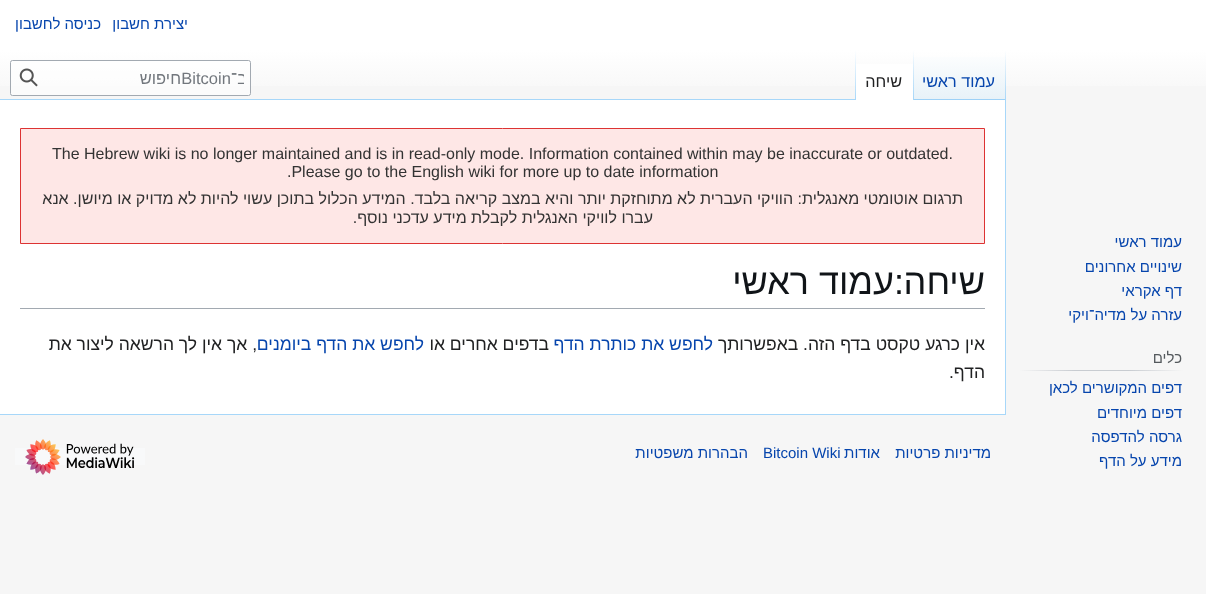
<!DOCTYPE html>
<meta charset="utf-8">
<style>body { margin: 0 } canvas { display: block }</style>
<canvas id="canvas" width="1206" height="594"></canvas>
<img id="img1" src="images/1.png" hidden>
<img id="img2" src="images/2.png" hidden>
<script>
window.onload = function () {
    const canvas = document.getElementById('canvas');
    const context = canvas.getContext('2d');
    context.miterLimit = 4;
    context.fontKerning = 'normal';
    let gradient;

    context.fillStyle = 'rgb(246, 246, 246)';
    context.fillRect(0, 0, 1206, 594);
    gradient = context.createLinearGradient(603, 0, 603, 100);
    gradient.addColorStop(0.5, 'rgb(255, 255, 255)');
    gradient.addColorStop(1, 'rgb(246, 246, 246)');
    context.fillStyle = gradient;
    context.fillRect(0, 0, 1206, 86);
    context.fillStyle = 'rgb(167, 215, 249)';
    context.fillRect(1005, 99, 1, 316);
    gradient = context.createLinearGradient(1006, 50, 1006, 100);
    gradient.addColorStop(0, 'rgba(167, 215, 249, 0)');
    gradient.addColorStop(1, 'rgb(167, 215, 249)');
    context.fillStyle = gradient;
    context.fillRect(1005, 50, 1, 50);
    gradient = context.createLinearGradient(959, 100, 959, 50);
    gradient.addColorStop(0, 'rgb(119, 193, 246)');
    gradient.addColorStop(0.03, 'rgb(232, 242, 248)');
    gradient.addColorStop(1, 'rgb(255, 255, 255)');
    context.fillStyle = gradient;
    context.fillRect(913, 57, 92, 43);
    gradient = context.createLinearGradient(913, 50, 913, 100);
    gradient.addColorStop(0, 'rgba(167, 215, 249, 0)');
    gradient.addColorStop(1, 'rgb(167, 215, 249)');
    context.fillStyle = gradient;
    context.fillRect(913, 50, 1, 50);
    context.fillStyle = 'rgb(255, 255, 255)';
    context.fillRect(856, 64, 57, 36);
    gradient = context.createLinearGradient(856, 50, 856, 100);
    gradient.addColorStop(0, 'rgb(255, 255, 255)');
    gradient.addColorStop(1, 'rgb(167, 215, 249)');
    context.fillStyle = gradient;
    context.fillRect(855, 50, 1, 50);
    context.fillStyle = 'rgba(255, 255, 255, 0.5)';
    context.beginPath();
    context.roundRect(10.5, 60.5, 240, 35, 2);
    context.fill();
    context.strokeStyle = 'rgb(162, 169, 177)';
    context.stroke();
    context.drawImage(document.getElementById('img1'), 19, 68, 19, 19);
    gradient = context.createLinearGradient(1183, 371, 1019, 371);
    gradient.addColorStop(0, 'rgb(246, 246, 246)');
    gradient.addColorStop(0.33, 'rgb(200, 204, 209)');
    gradient.addColorStop(0.66, 'rgb(200, 204, 209)');
    gradient.addColorStop(1, 'rgb(246, 246, 246)');
    context.fillStyle = gradient;
    context.fillRect(1019, 370, 164, 1);
    context.fillStyle = 'rgb(255, 255, 255)';
    context.fillRect(0, 100, 1005, 314);
    context.fillStyle = 'rgb(167, 215, 249)';
    context.fillRect(0, 99, 855, 1);
    context.fillRect(0, 414, 1006, 1);
    context.fillStyle = 'rgb(254, 231, 230)';
    context.beginPath();
    context.rect(20.5, 128.5, 964, 115);
    context.fill();
    context.strokeStyle = 'rgb(221, 51, 51)';
    context.stroke();
    context.fillStyle = 'rgb(162, 169, 177)';
    context.fillRect(20, 308, 965, 1);
    context.fillStyle = 'rgb(248, 249, 250)';
    context.fillRect(15, 448, 130, 17);
    context.drawImage(document.getElementById('img2'), 25, 439, 110, 36);
    context.direction = 'rtl';
    context.font = '15px Liberation Sans';
    context.fillStyle = 'rgb(6, 69, 173)';
    context.fillText('יצירת חשבון', 188, 29);
    context.fillText('כניסה לחשבון', 101, 29);
    context.font = '16.25px Liberation Sans';
    context.fillText('עמוד ראשי', 995, 87);
    context.fillStyle = 'rgb(32, 33, 34)';
    context.fillText('שיחה', 902, 87);
    context.save();
    context.beginPath();
    context.rect(48, 69, 196, 19);
    context.clip();
    context.font = '16.5px Liberation Sans';
    context.fillStyle = 'rgb(114, 119, 125)';
    context.fillText('ב־Bitcoin', 247, 84);
    context.restore();
    context.font = '16.5px Liberation Sans';
    context.fillStyle = 'rgb(114, 119, 125)';
    context.fillText('חיפוש', 181, 84);
    context.font = '15px Liberation Sans';
    context.fillStyle = 'rgb(6, 69, 173)';
    context.fillText('עמוד ראשי', 1182, 247);
    context.fillText('שינויים אחרונים', 1182, 272);
    context.fillText('דף אקראי', 1182, 296);
    context.fillText('עזרה על מדיה־ויקי', 1182, 320);
    context.fillStyle = 'rgb(84, 89, 93)';
    context.fillText('כלים', 1182, 363);
    context.fillStyle = 'rgb(6, 69, 173)';
    context.fillText('דפים המקושרים לכאן', 1182, 393);
    context.fillText('דפים מיוחדים', 1182, 418);
    context.fillText('גרסה להדפסה', 1182, 442);
    context.fillText('מידע על הדף', 1182, 466);
    context.direction = 'ltr';
    context.font = '16px Liberation Sans';
    context.fillStyle = 'rgb(51, 51, 51)';
    context.fillText('The Hebrew wiki is no longer maintained and is in read-only mode. Information contained within may be inaccurate or outdated.', 52, 159);
    context.fillText('.Please go to the English wiki for more up to date information', 287, 177);
    context.direction = 'rtl';
    context.fillText('תרגום אוטומטי מאנגלית: הוויקי העברית לא מתוחזקת יותר והיא במצב קריאה בלבד. המידע הכלול בתוכן עשוי להיות לא מדויק או מיושן. אנא', 963, 204);
    context.fillText('עברו לוויקי האנגלית לקבלת מידע עדכני נוסף.', 653, 223);
    context.font = '36px Liberation Sans';
    context.fillStyle = 'rgb(16, 20, 24)';
    context.fillText('שיחה', 985, 294);
    context.direction = 'ltr';
    context.fillText(':', 894, 294);
    context.direction = 'rtl';
    context.fillText('עמוד ראשי', 894, 294);
    context.font = '17.5px Liberation Sans';
    context.fillStyle = 'rgb(32, 33, 34)';
    context.fillText('אין כרגע טקסט בדף הזה. באפשרותך', 985, 350);
    context.fillStyle = 'rgb(6, 69, 173)';
    context.fillText('לחפש את כותרת הדף', 713, 350);
    context.fillStyle = 'rgb(32, 33, 34)';
    context.fillText('בדפים אחרים או', 549, 350);
    context.fillStyle = 'rgb(6, 69, 173)';
    context.fillText('לחפש את הדף ביומנים', 424, 350);
    context.fillStyle = 'rgb(32, 33, 34)';
    context.fillText(', אך אין לך הרשאה ליצור את', 257, 350);
    context.fillText('הדף.', 985, 378);
    context.font = '15px Liberation Sans';
    context.fillStyle = 'rgb(6, 69, 173)';
    context.fillText('מדיניות פרטיות', 991, 458);
    context.fillText('אודות', 880, 458);
    context.direction = 'ltr';
    context.fillText('Bitcoin Wiki', 763, 458);
    context.direction = 'rtl';
    context.fillText('הבהרות משפטיות', 748, 458);
};
</script>
